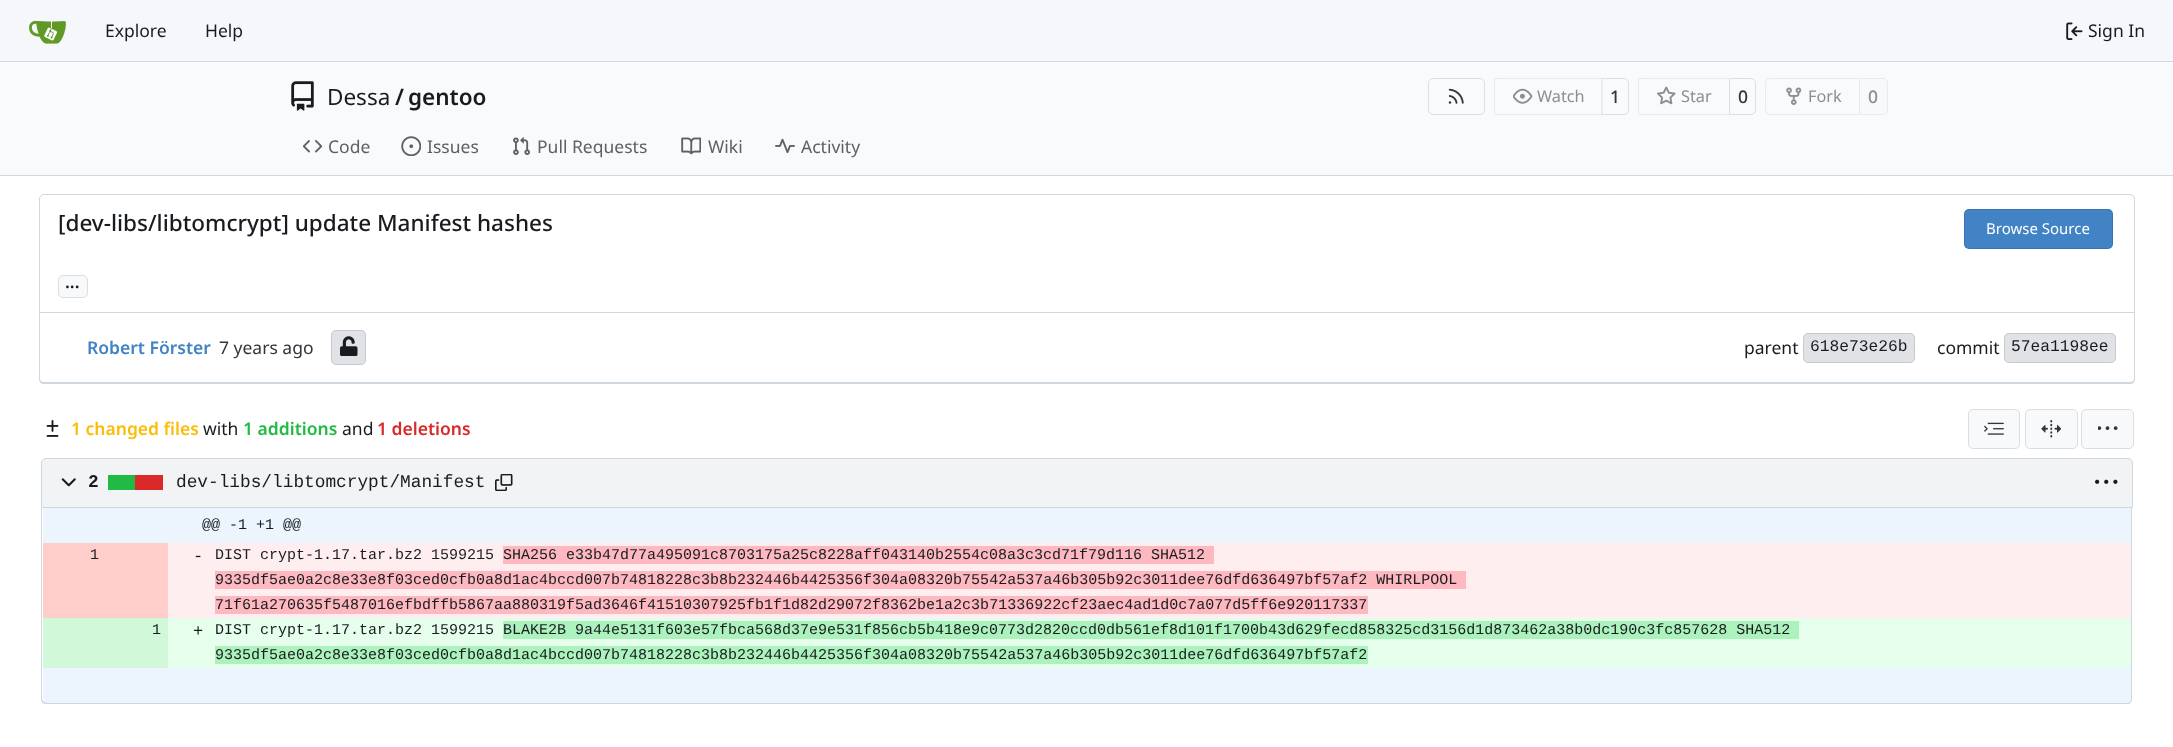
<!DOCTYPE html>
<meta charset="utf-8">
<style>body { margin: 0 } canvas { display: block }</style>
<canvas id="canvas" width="2173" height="747"></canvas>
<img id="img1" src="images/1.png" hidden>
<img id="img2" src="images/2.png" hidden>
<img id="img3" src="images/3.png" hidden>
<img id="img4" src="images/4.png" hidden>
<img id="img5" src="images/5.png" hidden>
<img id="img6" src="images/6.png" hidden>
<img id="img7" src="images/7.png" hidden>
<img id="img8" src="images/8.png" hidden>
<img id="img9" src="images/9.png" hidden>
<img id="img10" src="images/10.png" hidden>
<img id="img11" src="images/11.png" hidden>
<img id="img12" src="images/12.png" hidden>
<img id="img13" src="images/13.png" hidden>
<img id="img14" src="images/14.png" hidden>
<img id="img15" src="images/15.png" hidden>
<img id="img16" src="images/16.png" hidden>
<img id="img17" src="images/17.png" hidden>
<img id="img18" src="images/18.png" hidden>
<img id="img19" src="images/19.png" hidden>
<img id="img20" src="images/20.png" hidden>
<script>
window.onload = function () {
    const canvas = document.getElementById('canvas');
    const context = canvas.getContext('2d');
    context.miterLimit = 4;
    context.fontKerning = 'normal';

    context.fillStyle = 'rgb(255, 255, 255)';
    context.fillRect(0, 0, 2173, 747);
    context.fillStyle = 'rgb(246, 247, 250)';
    context.fillRect(0, 0, 2173, 61);
    context.fillStyle = 'rgb(208, 215, 222)';
    context.fillRect(0, 61, 2173, 1);
    context.drawImage(document.getElementById('img1'), 29, 20, 37, 24);
    context.drawImage(document.getElementById('img2'), 2066, 22, 17, 18);
    context.fillStyle = 'rgb(249, 250, 251)';
    context.fillRect(0, 63, 2173, 112);
    context.drawImage(document.getElementById('img3'), 291, 81, 23, 30);
    context.beginPath();
    context.roundRect(1428.5, 78.5, 56, 36, 4.5);
    context.strokeStyle = 'rgb(221, 222, 225)';
    context.stroke();
    context.drawImage(document.getElementById('img4'), 1448, 88, 16, 16);
    context.beginPath();
    context.roundRect(1601.5, 78.5, 27, 36, [0, 4.5, 4.5, 0]);
    context.stroke();
    context.fillStyle = 'rgba(248, 249, 251, 0.55)';
    context.beginPath();
    context.roundRect(1494, 78, 109, 37, [5, 0, 0, 5]);
    context.fill();
    context.strokeStyle = 'rgba(0, 0, 23, 0.06)';
    context.strokeRect(1494.5, 78.5, 108, 36);
    context.drawImage(document.getElementById('img5'), 1513, 88, 20, 16);
    context.beginPath();
    context.roundRect(1729.5, 78.5, 26, 36, [0, 4.5, 4.5, 0]);
    context.strokeStyle = 'rgb(221, 222, 225)';
    context.stroke();
    context.beginPath();
    context.roundRect(1638, 78, 92, 37, [5, 0, 0, 5]);
    context.fill();
    context.strokeStyle = 'rgba(0, 0, 23, 0.06)';
    context.strokeRect(1638.5, 78.5, 91, 36);
    context.drawImage(document.getElementById('img6'), 1657, 86, 19, 19);
    context.beginPath();
    context.roundRect(1765.5, 78.5, 94, 36, [4.5, 0, 0, 4.5]);
    context.strokeStyle = 'rgb(233, 234, 237)';
    context.stroke();
    context.drawImage(document.getElementById('img7'), 1786, 87, 16, 18);
    context.fillStyle = 'rgb(248, 249, 251)';
    context.beginPath();
    context.roundRect(1859.5, 78.5, 28, 36, [0, 4.5, 4.5, 0]);
    context.fill();
    context.stroke();
    context.drawImage(document.getElementById('img8'), 303, 140, 20, 13);
    context.drawImage(document.getElementById('img9'), 401, 136, 20, 20);
    context.drawImage(document.getElementById('img10'), 513, 137, 17, 18);
    context.drawImage(document.getElementById('img11'), 681, 137, 20, 18);
    context.drawImage(document.getElementById('img12'), 775, 138, 20, 16);
    context.fillStyle = 'rgb(208, 215, 222)';
    context.fillRect(0, 175, 2173, 1);
    context.beginPath();
    context.roundRect(39.5, 194.5, 2095, 118, [4.5, 4.5, 0, 0]);
    context.strokeStyle = 'rgb(208, 215, 222)';
    context.stroke();
    context.fillStyle = 'rgb(65, 131, 196)';
    context.beginPath();
    context.roundRect(1964, 209, 149, 40, 5);
    context.fill();
    context.beginPath();
    context.roundRect(1964.5, 209.5, 148, 39, 4.5);
    context.strokeStyle = 'rgba(0, 0, 23, 0.11)';
    context.stroke();
    context.fillStyle = 'rgb(248, 249, 251)';
    context.beginPath();
    context.roundRect(58, 275, 30, 23, 5);
    context.fill();
    context.beginPath();
    context.roundRect(58.5, 275.5, 29, 22, 4.5);
    context.stroke();
    context.fillStyle = 'rgb(208, 215, 222)';
    context.beginPath();
    context.moveTo(39, 312);
    context.lineTo(2135, 312);
    context.lineTo(2135, 379);
    context.bezierCurveTo(2135, 382, 2133, 384, 2130, 384);
    context.lineTo(44, 384);
    context.bezierCurveTo(41, 384, 39, 382, 39, 379);
    context.closePath();
    context.moveTo(40, 312);
    context.lineTo(2134, 312);
    context.lineTo(2134, 379);
    context.bezierCurveTo(2134, 381, 2132, 382, 2130, 382);
    context.lineTo(44, 382);
    context.bezierCurveTo(42, 382, 40, 381, 40, 379);
    context.closePath();
    context.fill('evenodd');
    context.fillStyle = 'rgb(224, 226, 229)';
    context.beginPath();
    context.roundRect(331, 330, 35, 35, 5);
    context.fill();
    context.beginPath();
    context.roundRect(331.5, 330.5, 34, 34, 4.5);
    context.stroke();
    context.drawImage(document.getElementById('img13'), 340, 336, 18, 20);
    context.beginPath();
    context.roundRect(1803, 333, 112, 30, 5);
    context.fill();
    context.beginPath();
    context.roundRect(1803.5, 333.5, 111, 29, 4.5);
    context.stroke();
    context.beginPath();
    context.roundRect(2004, 333, 112, 30, 5);
    context.fill();
    context.beginPath();
    context.roundRect(2004.5, 333.5, 111, 29, 4.5);
    context.stroke();
    context.drawImage(document.getElementById('img14'), 46, 420, 13, 17);
    context.fillStyle = 'rgb(248, 249, 251)';
    context.beginPath();
    context.roundRect(1968, 409, 52, 40, 5);
    context.fill();
    context.beginPath();
    context.roundRect(1968.5, 409.5, 51, 39, 4.5);
    context.stroke();
    context.drawImage(document.getElementById('img15'), 1984, 422, 20, 13);
    context.beginPath();
    context.roundRect(2025, 409, 53, 40, 5);
    context.fill();
    context.beginPath();
    context.roundRect(2025.5, 409.5, 52, 39, 4.5);
    context.stroke();
    context.drawImage(document.getElementById('img16'), 2041, 420, 20, 18);
    context.beginPath();
    context.roundRect(2081, 409, 53, 40, 5);
    context.fill();
    context.beginPath();
    context.roundRect(2081.5, 409.5, 52, 39, 4.5);
    context.stroke();
    context.drawImage(document.getElementById('img17'), 2098, 426, 20, 4);
    context.fillStyle = 'rgb(241, 243, 245)';
    context.beginPath();
    context.roundRect(41.5, 458.5, 2091, 49, [4.5, 4.5, 0, 0]);
    context.fill();
    context.strokeStyle = 'rgb(208, 215, 222)';
    context.stroke();
    context.drawImage(document.getElementById('img18'), 61, 478, 15, 9);
    context.fillStyle = 'rgb(219, 40, 40)';
    context.fillRect(135, 475, 28, 15);
    context.fillStyle = 'rgb(33, 186, 69)';
    context.fillRect(108, 475, 27, 15);
    context.drawImage(document.getElementById('img19'), 495, 474, 18, 17);
    context.drawImage(document.getElementById('img20'), 2095, 479, 23, 5);
    context.fillStyle = 'rgb(208, 215, 222)';
    context.beginPath();
    context.moveTo(41, 508);
    context.lineTo(2132, 508);
    context.lineTo(2132, 699);
    context.bezierCurveTo(2132, 702, 2130, 704, 2128, 704);
    context.lineTo(46, 704);
    context.bezierCurveTo(43, 704, 41, 702, 41, 699);
    context.closePath();
    context.moveTo(42, 508);
    context.lineTo(2131, 508);
    context.lineTo(2131, 699);
    context.bezierCurveTo(2131, 701, 2130, 702, 2128, 702);
    context.lineTo(46, 702);
    context.bezierCurveTo(44, 702, 42, 701, 42, 699);
    context.closePath();
    context.fill('evenodd');
    context.fillStyle = 'rgb(236, 245, 253)';
    context.fillRect(43, 508, 2088, 35);
    context.fillStyle = 'rgb(255, 238, 240)';
    context.fillRect(168, 543, 1963, 75);
    context.fillStyle = 'rgb(255, 206, 203)';
    context.fillRect(43, 543, 125, 75);
    context.fillStyle = 'rgb(253, 184, 192)';
    context.fillRect(503, 546, 711, 18);
    context.fillRect(215, 571, 1251, 18);
    context.fillRect(215, 596, 1153, 18);
    context.fillStyle = 'rgb(230, 255, 237)';
    context.fillRect(168, 618, 1963, 50);
    context.fillStyle = 'rgb(209, 248, 217)';
    context.fillRect(43, 618, 125, 50);
    context.fillStyle = 'rgb(172, 242, 189)';
    context.fillRect(503, 621, 1296, 18);
    context.fillRect(215, 646, 1153, 18);
    context.fillStyle = 'rgb(236, 245, 253)';
    context.beginPath();
    context.roundRect(43, 668, 125, 35, [0, 0, 0, 4]);
    context.fill();
    context.fillRect(168, 668, 35, 35);
    context.beginPath();
    context.roundRect(203, 668, 1928, 35, [0, 0, 4, 0]);
    context.fill();
    context.font = '17.5px Noto Sans';
    context.fillStyle = 'rgb(24, 28, 33)';
    context.fillText('Explore', 105, 37);
    context.fillText('Help', 205, 37);
    context.fillText('Sign In', 2088, 37);
    context.font = '22.5px Noto Sans';
    context.fillText('Dessa', 327, 105);
    context.font = '600 22.5px Noto Sans';
    context.fillText('/', 395, 105);
    context.fillText('gentoo', 408, 105);
    context.font = '16.25px Noto Sans';
    context.fillStyle = 'rgb(138, 142, 145)';
    context.fillText('Watch', 1537, 102);
    context.font = '500 17.5px Noto Sans';
    context.fillStyle = 'rgb(48, 54, 59)';
    context.fillText('1', 1610, 103);
    context.font = '16.25px Noto Sans';
    context.fillStyle = 'rgb(138, 142, 145)';
    context.fillText('Star', 1681, 102);
    context.font = '500 17.5px Noto Sans';
    context.fillStyle = 'rgb(48, 54, 59)';
    context.fillText('0', 1738, 103);
    context.font = '16.25px Noto Sans';
    context.fillStyle = 'rgb(138, 142, 145)';
    context.fillText('Fork', 1808, 102);
    context.font = '500 17.5px Noto Sans';
    context.fillText('0', 1868, 103);
    context.font = '17.5px Noto Sans';
    context.fillStyle = 'rgb(91, 97, 103)';
    context.fillText('Code', 328, 153);
    context.fillText('Issues', 427, 153);
    context.fillText('Pull Requests', 537, 153);
    context.fillText('Wiki', 708, 153);
    context.fillText('Activity', 801, 153);
    context.font = '500 22.5px Noto Sans';
    context.fillStyle = 'rgb(24, 28, 33)';
    context.fillText('[dev-libs/libtomcrypt] update Manifest hashes', 58, 231);
    context.font = '15px Noto Sans';
    context.fillStyle = 'rgb(255, 255, 255)';
    context.fillText('Browse Source', 1986, 234);
    context.font = '600 17.5px Noto Sans';
    context.fillStyle = 'rgb(24, 28, 33)';
    context.fillText('...', 65, 288);
    context.fillStyle = 'rgb(65, 131, 196)';
    context.fillText('Robert Förster', 87, 354);
    context.font = '17.5px Noto Sans';
    context.fillStyle = 'rgb(48, 54, 59)';
    context.fillText('7 years ago', 219, 354);
    context.fillStyle = 'rgb(24, 28, 33)';
    context.fillText('parent', 1744, 354);
    context.font = '16.25px Liberation Mono';
    context.fillText('618e73e26b', 1810, 351);
    context.font = '17.5px Noto Sans';
    context.fillText('commit', 1937, 354);
    context.font = '16.25px Liberation Mono';
    context.fillText('57ea1198ee', 2011, 351);
    context.font = '600 17.5px Noto Sans';
    context.fillStyle = 'rgb(251, 189, 8)';
    context.fillText('1 changed files', 71, 435);
    context.font = '17.5px Noto Sans';
    context.fillStyle = 'rgb(24, 28, 33)';
    context.fillText('with', 203, 435);
    context.font = '600 17.5px Noto Sans';
    context.fillStyle = 'rgb(33, 186, 69)';
    context.fillText('1 additions', 243, 435);
    context.font = '17.5px Noto Sans';
    context.fillStyle = 'rgb(24, 28, 33)';
    context.fillText('and', 342, 435);
    context.font = '600 17.5px Noto Sans';
    context.fillStyle = 'rgb(219, 40, 40)';
    context.fillText('1 deletions', 377, 435);
    context.font = 'bold 17.8px Liberation Mono';
    context.fillStyle = 'rgb(24, 28, 33)';
    context.fillText('2', 88, 487);
    context.font = '17.8px Liberation Mono';
    context.fillText('dev-libs/libtomcrypt/Manifest', 176, 487);
    context.font = '15px Liberation Mono';
    context.fillText('@@ -1 +1 @@', 202, 529);
    context.fillText('1', 90, 559);
    context.font = '17px Liberation Mono';
    context.fillText('-', 193, 561);
    context.font = '15px Liberation Mono';
    context.fillText('DIST crypt-1.17.tar.bz2 1599215', 215, 559);
    context.fillText('SHA256 e33b47d77a495091c8703175a25c8228aff043140b2554c08a3c3cd71f79d116 SHA512', 503, 559);
    context.fillText('9335df5ae0a2c8e33e8f03ced0cfb0a8d1ac4bccd007b74818228c3b8b232446b4425356f304a08320b75542a537a46b305b92c3011dee76dfd636497bf57af2 WHIRLPOOL', 215, 584);
    context.fillText('71f61a270635f5487016efbdffb5867aa880319f5ad3646f41510307925fb1f1d82d29072f8362be1a2c3b71336922cf23aec4ad1d0c7a077d5ff6e920117337', 215, 609);
    context.fillText('DIST crypt-1.17.tar.bz2 1599215', 215, 634);
    context.fillText('BLAKE2B 9a44e5131f603e57fbca568d37e9e531f856cb5b418e9c0773d2820ccd0db561ef8d101f1700b43d629fecd858325cd3156d1d873462a38b0dc190c3fc857628 SHA512', 503, 634);
    context.fillText('9335df5ae0a2c8e33e8f03ced0cfb0a8d1ac4bccd007b74818228c3b8b232446b4425356f304a08320b75542a537a46b305b92c3011dee76dfd636497bf57af2', 215, 659);
    context.fillText('1', 152, 634);
    context.font = '17px Liberation Mono';
    context.fillText('+', 193, 636);
};
</script>
